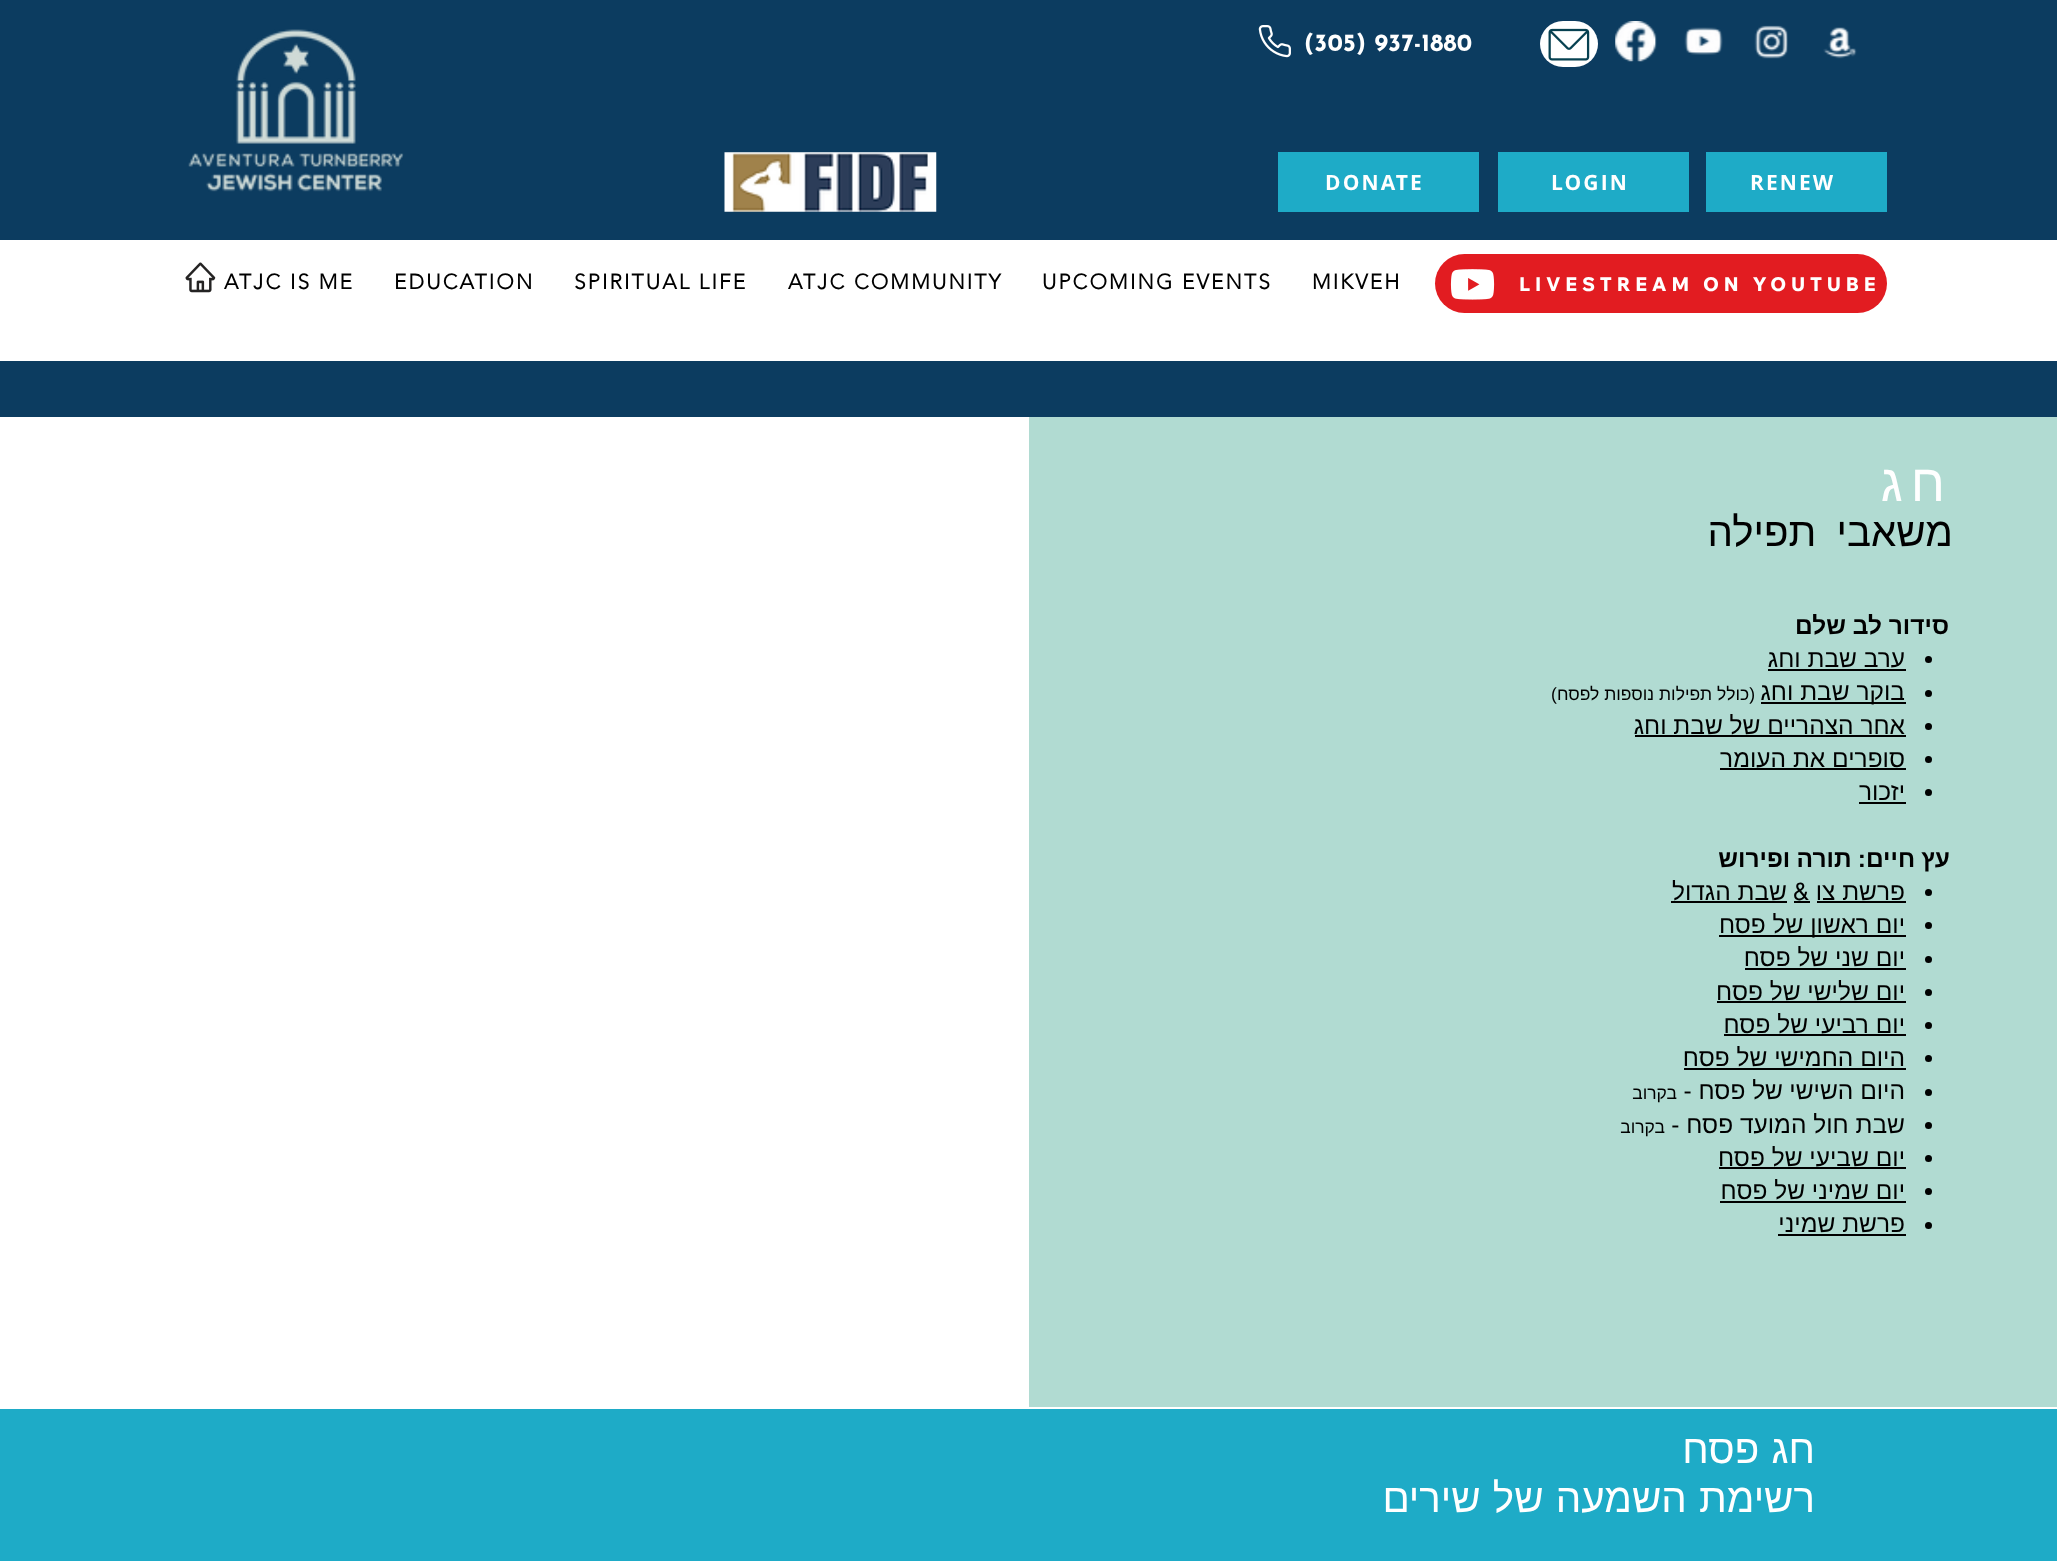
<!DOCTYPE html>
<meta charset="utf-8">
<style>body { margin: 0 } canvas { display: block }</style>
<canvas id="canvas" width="2057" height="1561"></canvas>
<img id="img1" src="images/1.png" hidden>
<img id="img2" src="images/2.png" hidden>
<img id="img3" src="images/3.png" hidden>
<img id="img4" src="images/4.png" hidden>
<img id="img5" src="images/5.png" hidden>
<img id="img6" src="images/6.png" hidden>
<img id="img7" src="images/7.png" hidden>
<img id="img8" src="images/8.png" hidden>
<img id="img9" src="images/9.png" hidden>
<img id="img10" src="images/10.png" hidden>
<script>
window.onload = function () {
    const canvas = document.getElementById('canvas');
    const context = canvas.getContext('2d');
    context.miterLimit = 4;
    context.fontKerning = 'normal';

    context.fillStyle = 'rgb(255, 255, 255)';
    context.fillRect(0, 0, 2057, 1561);
    context.fillStyle = 'rgb(12, 60, 96)';
    context.fillRect(0, 0, 2057, 417);
    context.drawImage(document.getElementById('img1'), 1823, 27, 34, 32);
    context.drawImage(document.getElementById('img2'), 1754, 25, 34, 34);
    context.drawImage(document.getElementById('img3'), 1684, 27, 39, 28);
    context.drawImage(document.getElementById('img4'), 1615, 21, 42, 41);
    context.fillStyle = 'rgb(255, 255, 255)';
    context.beginPath();
    context.roundRect(1540, 21, 58, 46, 23);
    context.fill();
    context.drawImage(document.getElementById('img5'), 1548, 28, 42, 33);
    context.drawImage(document.getElementById('img6'), 1258, 25, 33, 33);
    context.drawImage(document.getElementById('img7'), 188, 29, 216, 163);
    context.fillStyle = 'rgb(30, 171, 199)';
    context.fillRect(1706, 152, 181, 60);
    context.fillRect(1498, 152, 191, 60);
    context.fillRect(1278, 152, 201, 60);
    context.drawImage(document.getElementById('img8'), 724, 152, 213, 60);
    context.fillStyle = 'rgb(255, 255, 255)';
    context.fillRect(0, 240, 2057, 121);
    context.fillStyle = 'rgb(226, 28, 33)';
    context.beginPath();
    context.roundRect(1435, 254, 452, 59, 29.5);
    context.fill();
    context.drawImage(document.getElementById('img9'), 1450, 269, 45, 31);
    context.drawImage(document.getElementById('img10'), 185, 262, 31, 31);
    context.fillStyle = 'rgb(177, 219, 210)';
    context.fillRect(1029, 417, 1028, 990);
    context.fillStyle = 'rgb(0, 0, 0)';
    context.beginPath();
    context.arc(1928.5, 659.5, 3.5, 0, 2 * Math.PI);
    context.fill();
    context.fillRect(1768, 669, 138, 2);
    context.beginPath();
    context.arc(1928.5, 693.5, 3.5, 0, 2 * Math.PI);
    context.fill();
    context.fillRect(1761, 702, 145, 2);
    context.beginPath();
    context.arc(1928.5, 726.5, 3.5, 0, 2 * Math.PI);
    context.fill();
    context.fillRect(1635, 735, 271, 2);
    context.beginPath();
    context.arc(1928.5, 759.5, 3.5, 0, 2 * Math.PI);
    context.fill();
    context.fillRect(1720, 768, 186, 2);
    context.beginPath();
    context.arc(1928.5, 792.5, 3.5, 0, 2 * Math.PI);
    context.fill();
    context.fillRect(1859, 802, 47, 2);
    context.beginPath();
    context.arc(1928.5, 892.5, 3.5, 0, 2 * Math.PI);
    context.fill();
    context.fillRect(1817, 901, 89, 2);
    context.fillRect(1794, 901, 16, 2);
    context.fillRect(1671, 901, 116, 2);
    context.beginPath();
    context.arc(1928.5, 925.5, 3.5, 0, 2 * Math.PI);
    context.fill();
    context.fillRect(1719, 935, 187, 2);
    context.beginPath();
    context.arc(1928.5, 959.5, 3.5, 0, 2 * Math.PI);
    context.fill();
    context.fillRect(1745, 968, 161, 2);
    context.beginPath();
    context.arc(1928.5, 992.5, 3.5, 0, 2 * Math.PI);
    context.fill();
    context.fillRect(1717, 1001, 189, 2);
    context.beginPath();
    context.arc(1928.5, 1025.5, 3.5, 0, 2 * Math.PI);
    context.fill();
    context.fillRect(1724, 1034, 182, 2);
    context.beginPath();
    context.arc(1928.5, 1058.5, 3.5, 0, 2 * Math.PI);
    context.fill();
    context.fillRect(1684, 1068, 222, 2);
    context.beginPath();
    context.arc(1928.5, 1092.5, 3.5, 0, 2 * Math.PI);
    context.fill();
    context.beginPath();
    context.arc(1928.5, 1125.5, 3.5, 0, 2 * Math.PI);
    context.fill();
    context.beginPath();
    context.arc(1928.5, 1158.5, 3.5, 0, 2 * Math.PI);
    context.fill();
    context.fillRect(1719, 1167, 187, 2);
    context.beginPath();
    context.arc(1928.5, 1191.5, 3.5, 0, 2 * Math.PI);
    context.fill();
    context.fillRect(1720, 1201, 186, 2);
    context.beginPath();
    context.arc(1928.5, 1225.5, 3.5, 0, 2 * Math.PI);
    context.fill();
    context.fillRect(1778, 1234, 128, 2);
    context.fillStyle = 'rgb(30, 171, 199)';
    context.fillRect(0, 1409, 2057, 152);
    context.letterSpacing = '0.25px';
    context.font = '100 24.5px Josefin Sans';
    context.fillStyle = 'rgb(255, 255, 255)';
    context.fillText('(305) 937-1880', 1304, 51);
    context.letterSpacing = '2.1px';
    context.font = 'bold 21px Open Sans';
    context.fillText('RENEW', 1750, 190);
    context.fillText('LOGIN', 1551, 190);
    context.fillText('DONATE', 1325, 190);
    context.letterSpacing = '4.8px';
    context.font = '800 19.25px Wix Madefor Text';
    context.fillText('LIVESTREAM ON YOUTUBE', 1519, 291);
    context.letterSpacing = '2.1px';
    context.font = 'bold 21px "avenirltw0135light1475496"';
    context.fillStyle = 'rgb(0, 0, 0)';
    context.fillText('MIKVEH', 1312, 289);
    context.fillText('UPCOMING EVENTS', 1042, 289);
    context.fillText('ATJC COMMUNITY', 788, 289);
    context.fillText('SPIRITUAL LIFE', 574, 289);
    context.fillText('EDUCATION', 394, 289);
    context.fillText('ATJC IS ME', 224, 289);
    context.letterSpacing = '8px';
    context.direction = 'rtl';
    context.font = '52px Liberation Sans';
    context.fillStyle = 'rgb(255, 255, 255)';
    context.fillText('חג', 1953, 501);
    context.letterSpacing = '0px';
    context.wordSpacing = '9px';
    context.font = '40.25px Liberation Sans';
    context.fillStyle = 'rgb(0, 0, 0)';
    context.fillText('משאבי תפילה', 1953, 546);
    context.wordSpacing = '0px';
    context.font = 'bold 24.5px Liberation Sans';
    context.fillText('סידור לב שלם', 1949, 634);
    context.font = '24.5px Liberation Sans';
    context.fillText('ערב שבת וחג', 1905, 667);
    context.fillText('בוקר שבת וחג', 1905, 700);
    context.font = '17.5px Liberation Sans';
    context.fillText('(כולל תפילות נוספות לפסח)', 1755, 700);
    context.font = '24.5px Liberation Sans';
    context.fillText('אחר הצהריים של שבת וחג', 1905, 734);
    context.fillText('סופרים את העומר', 1905, 767);
    context.fillText('יזכור', 1905, 800);
    context.wordSpacing = '-0.5px';
    context.font = 'bold 24.5px Liberation Sans';
    context.fillText('עץ חיים: תורה ופירוש', 1950, 867);
    context.wordSpacing = '0px';
    context.font = '24.5px Liberation Sans';
    context.fillText('פרשת צו', 1905, 900);
    context.direction = 'ltr';
    context.font = '24.5px helvetica';
    context.fillText('&', 1793, 900);
    context.direction = 'rtl';
    context.font = '24.5px Liberation Sans';
    context.fillText('שבת הגדול', 1787, 900);
    context.fillText('יום ראשון של פסח', 1905, 933);
    context.fillText('יום שני של פסח', 1905, 966);
    context.fillText('יום שלישי של פסח', 1905, 1000);
    context.fillText('יום רביעי של פסח', 1905, 1033);
    context.fillText('היום החמישי של פסח', 1905, 1066);
    context.fillText('היום השישי', 1905, 1099);
    context.fillText('של פסח -', 1783, 1099);
    context.font = '17.5px Liberation Sans';
    context.fillText('בקרוב', 1677, 1099);
    context.font = '24.5px Liberation Sans';
    context.fillText('שבת חול המועד פסח -', 1905, 1133);
    context.font = '17.5px Liberation Sans';
    context.fillText('בקרוב', 1665, 1133);
    context.font = '24.5px Liberation Sans';
    context.fillText('יום שביעי של פסח', 1905, 1166);
    context.fillText('יום שמיני של פסח', 1905, 1199);
    context.fillText('פרשת שמיני', 1905, 1232);
    context.wordSpacing = '1px';
    context.font = '40.25px Liberation Sans';
    context.fillStyle = 'rgb(255, 255, 255)';
    context.fillText('חג פסח', 1815, 1463);
    context.fillText('רשימת השמעה של שירים', 1815, 1512);
};
</script>
